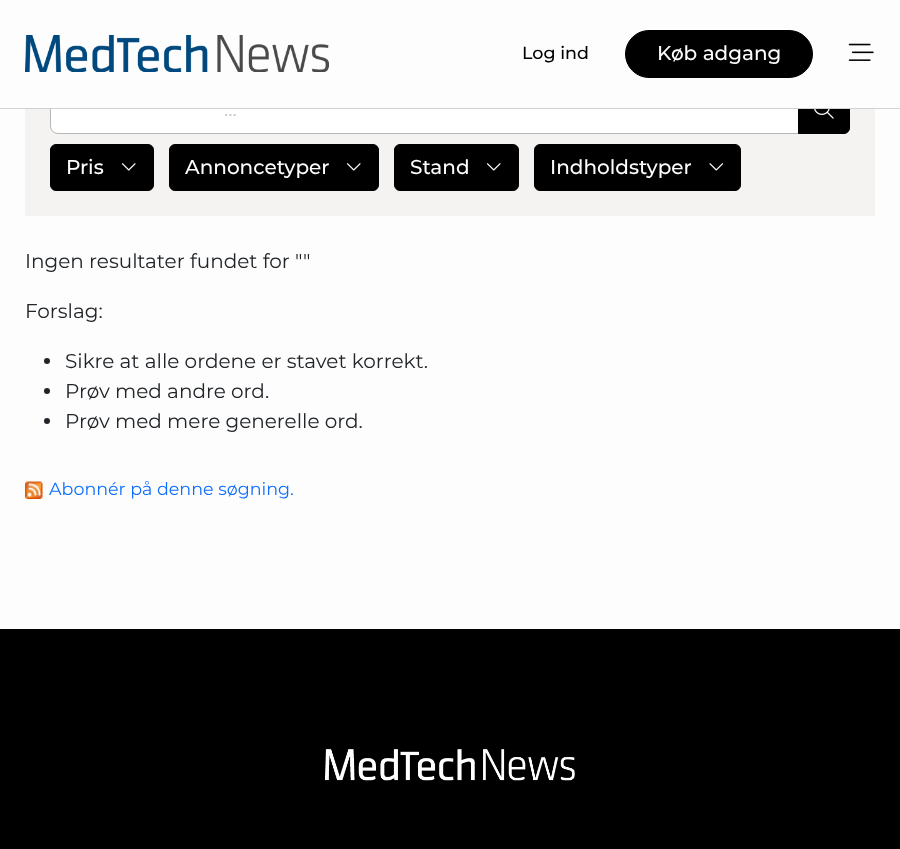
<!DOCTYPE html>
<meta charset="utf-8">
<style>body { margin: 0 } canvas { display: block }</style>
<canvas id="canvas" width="900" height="849"></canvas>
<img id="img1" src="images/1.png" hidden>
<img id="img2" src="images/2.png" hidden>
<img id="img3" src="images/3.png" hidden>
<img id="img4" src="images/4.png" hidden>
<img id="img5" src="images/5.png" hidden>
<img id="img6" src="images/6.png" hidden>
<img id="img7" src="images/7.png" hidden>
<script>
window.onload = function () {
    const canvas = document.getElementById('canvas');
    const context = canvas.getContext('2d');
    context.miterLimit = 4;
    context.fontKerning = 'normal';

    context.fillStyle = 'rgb(253, 253, 253)';
    context.fillRect(0, 0, 900, 849);
    context.fillStyle = 'rgb(245, 243, 241)';
    context.fillRect(25, 109, 850, 107);
    context.fillStyle = 'rgb(255, 255, 255)';
    context.beginPath();
    context.roundRect(51, 88, 747, 45, [6, 0, 0, 6]);
    context.fill();
    context.beginPath();
    context.roundRect(50.5, 86.5, 748, 47, [7.5, 0, 0, 7.5]);
    context.strokeStyle = 'rgba(0, 0, 0, 0.25)';
    context.stroke();
    context.fillStyle = 'rgb(0, 0, 0)';
    context.beginPath();
    context.roundRect(798.5, 86.5, 51, 47, [0, 5.5, 5.5, 0]);
    context.fill();
    context.strokeStyle = 'rgb(0, 0, 0)';
    context.stroke();
    context.fillStyle = 'rgb(253, 253, 253)';
    context.fillRect(50, 86, 800, 22);
    context.fillStyle = 'rgb(209, 209, 209)';
    context.fillRect(0, 108, 900, 1);
    context.drawImage(document.getElementById('img1'), 25, 35, 304, 37);
    context.fillStyle = 'rgb(0, 0, 0)';
    context.beginPath();
    context.roundRect(625.5, 30.5, 187, 47, 23.5);
    context.fill();
    context.stroke();
    context.drawImage(document.getElementById('img2'), 848, 43, 26, 18);
    context.drawImage(document.getElementById('img3'), 814, 109, 20, 10);
    context.beginPath();
    context.roundRect(50.5, 144.5, 103, 46, 5.5);
    context.fill();
    context.stroke();
    context.drawImage(document.getElementById('img4'), 121, 163, 15, 8);
    context.beginPath();
    context.roundRect(169.5, 144.5, 209, 46, 5.5);
    context.fill();
    context.stroke();
    context.drawImage(document.getElementById('img4'), 346, 163, 15, 8);
    context.beginPath();
    context.roundRect(394.5, 144.5, 124, 46, 5.5);
    context.fill();
    context.stroke();
    context.drawImage(document.getElementById('img4'), 486, 163, 15, 8);
    context.beginPath();
    context.roundRect(534.5, 144.5, 206, 46, 5.5);
    context.fill();
    context.stroke();
    context.drawImage(document.getElementById('img5'), 709, 163, 15, 8);
    context.fillStyle = 'rgb(33, 37, 41)';
    context.beginPath();
    context.arc(47, 361, 3, 0, 2 * Math.PI);
    context.fill();
    context.beginPath();
    context.arc(47, 391, 3, 0, 2 * Math.PI);
    context.fill();
    context.beginPath();
    context.arc(47, 421, 3, 0, 2 * Math.PI);
    context.fill();
    context.drawImage(document.getElementById('img6'), 25, 481, 18, 18);
    context.fillStyle = 'rgb(0, 0, 0)';
    context.fillRect(0, 629, 900, 220);
    context.drawImage(document.getElementById('img7'), 325, 749, 250, 32);
    context.font = '500 17.5px Montserrat';
    context.fillText('Log ind', 522, 59);
    context.font = '500 20px Montserrat';
    context.fillStyle = 'rgb(253, 253, 253)';
    context.fillText('Køb adgang', 657, 60);
    context.font = '20px Montserrat';
    context.fillStyle = 'rgb(198, 197, 196)';
    context.fillText('...', 224, 116);
    context.font = '500 20px Montserrat';
    context.fillStyle = 'rgb(253, 253, 253)';
    context.fillText('Pris', 66, 174);
    context.fillText('Annoncetyper', 185, 174);
    context.fillText('Stand', 410, 174);
    context.fillText('Indholdstyper', 550, 174);
    context.font = '20px Montserrat';
    context.fillStyle = 'rgb(33, 37, 41)';
    context.fillText('Ingen resultater fundet for "', 25, 268);
    context.fillText('"', 303, 268);
    context.fillText('Forslag:', 25, 318);
    context.fillText('Sikre at alle ordene er stavet korrekt.', 65, 368);
    context.fillText('Prøv med andre ord.', 65, 398);
    context.fillText('Prøv med mere generelle ord.', 65, 428);
    context.font = '17.5px Montserrat';
    context.fillStyle = 'rgb(13, 110, 253)';
    context.fillText('Abonnér på denne søgning.', 49, 495);
};
</script>
